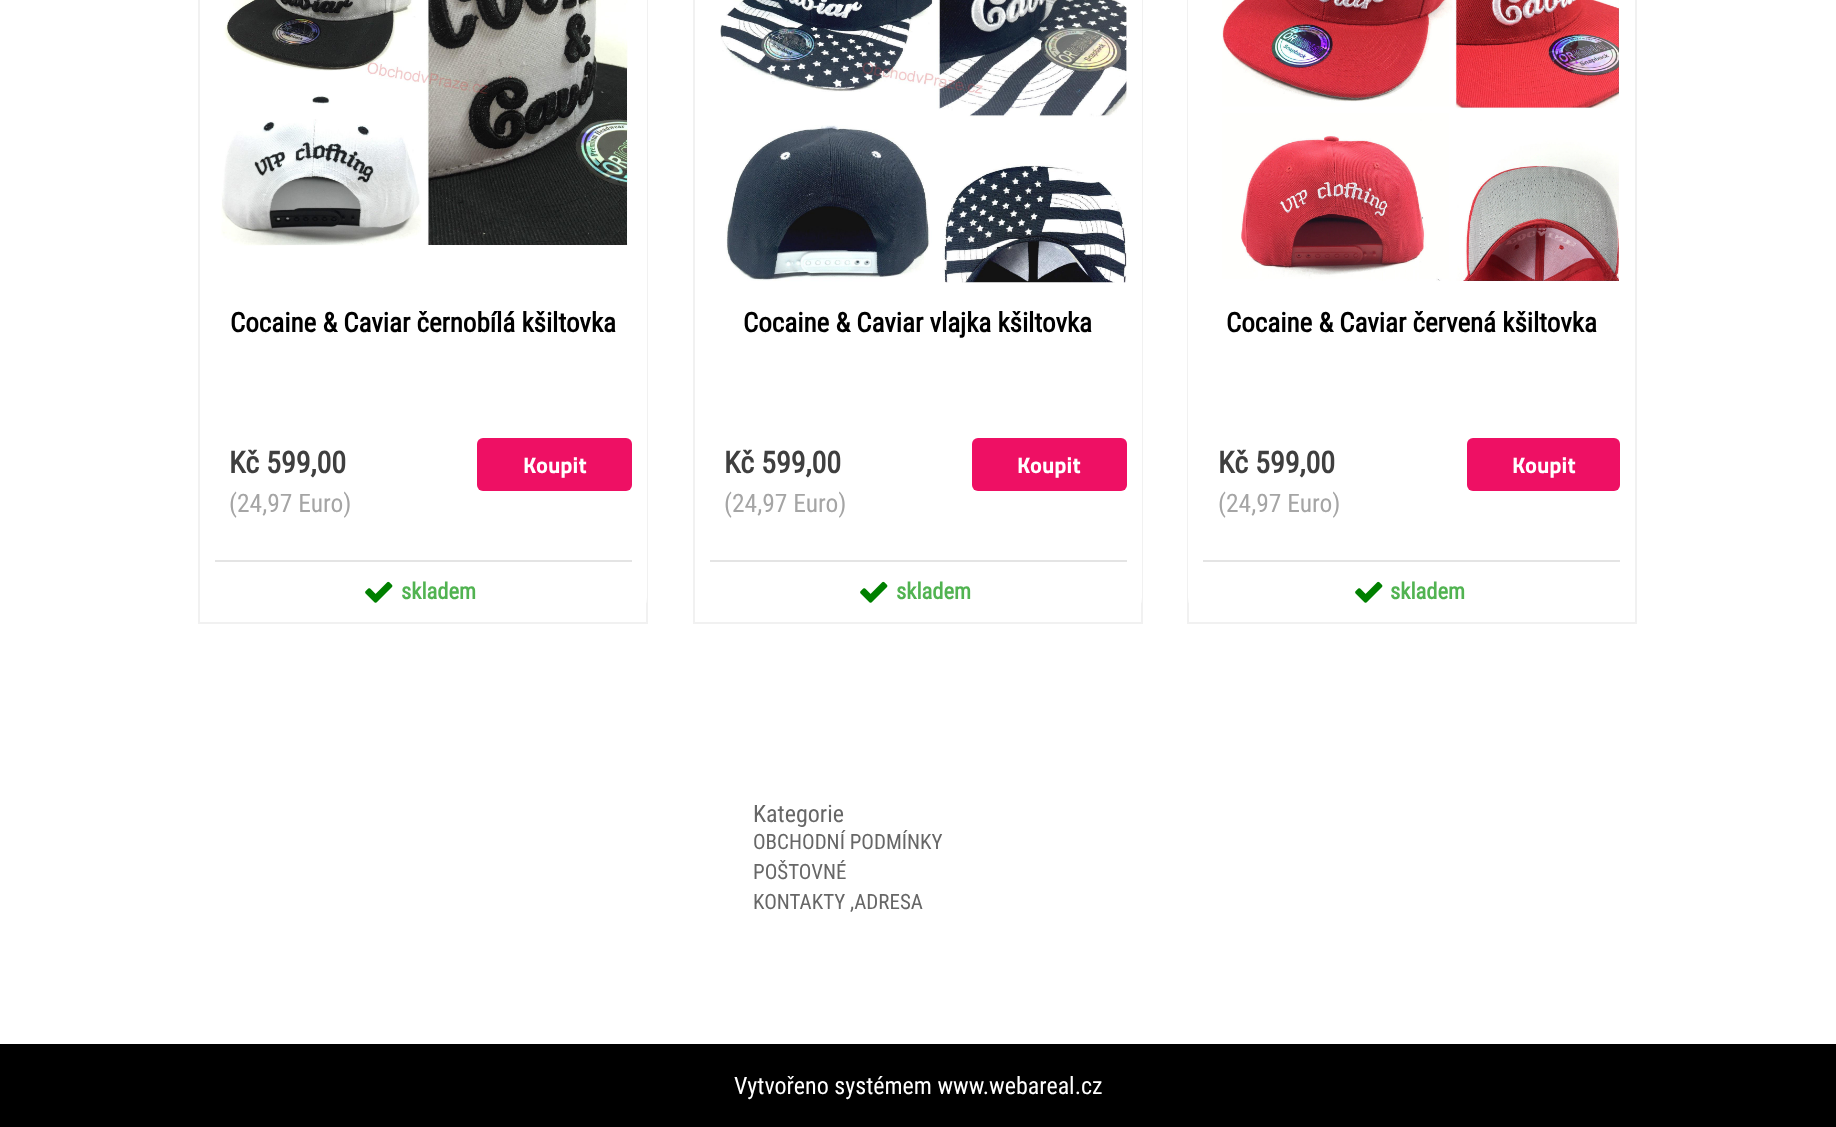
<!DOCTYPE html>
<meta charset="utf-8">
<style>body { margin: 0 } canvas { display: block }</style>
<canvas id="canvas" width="1836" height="1127"></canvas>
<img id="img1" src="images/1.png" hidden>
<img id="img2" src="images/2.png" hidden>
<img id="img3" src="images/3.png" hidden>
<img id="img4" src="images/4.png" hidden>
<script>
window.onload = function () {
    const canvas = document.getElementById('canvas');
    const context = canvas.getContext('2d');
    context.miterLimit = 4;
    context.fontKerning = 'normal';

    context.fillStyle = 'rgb(255, 255, 255)';
    context.fillRect(0, 0, 1836, 1127);
    context.strokeStyle = 'rgb(241, 241, 241)';
    context.lineWidth = 2;
    context.strokeRect(199, -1, 448, 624);
    context.beginPath();
    context.roundRect(200, -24, 447, 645, 24);
    context.fill();
    context.drawImage(document.getElementById('img1'), 221, 0, 409, 246);
    context.fillStyle = 'rgb(238, 16, 100)';
    context.beginPath();
    context.roundRect(477, 438, 155, 53, 6);
    context.fill();
    context.fillStyle = 'rgb(228, 228, 228)';
    context.fillRect(215, 560, 417, 2);
    context.drawImage(document.getElementById('img2'), 365, 581, 28, 22);
    context.strokeRect(694, -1, 448, 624);
    context.fillStyle = 'rgb(255, 255, 255)';
    context.beginPath();
    context.roundRect(695, -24, 447, 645, 24);
    context.fill();
    context.drawImage(document.getElementById('img3'), 720, 0, 407, 283);
    context.fillStyle = 'rgb(238, 16, 100)';
    context.beginPath();
    context.roundRect(972, 438, 155, 53, 6);
    context.fill();
    context.fillStyle = 'rgb(228, 228, 228)';
    context.fillRect(710, 560, 417, 2);
    context.drawImage(document.getElementById('img2'), 860, 581, 28, 22);
    context.strokeRect(1188, -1, 448, 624);
    context.fillStyle = 'rgb(255, 255, 255)';
    context.beginPath();
    context.roundRect(1188, -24, 447, 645, 24);
    context.fill();
    context.drawImage(document.getElementById('img4'), 1222, 0, 397, 281);
    context.fillStyle = 'rgb(238, 16, 100)';
    context.beginPath();
    context.roundRect(1467, 438, 153, 53, 6);
    context.fill();
    context.fillStyle = 'rgb(228, 228, 228)';
    context.fillRect(1203, 560, 417, 2);
    context.drawImage(document.getElementById('img2'), 1355, 581, 28, 22);
    context.fillStyle = 'rgb(0, 0, 0)';
    context.fillRect(0, 1044, 1836, 83);
    context.font = 'bold 27px Roboto Condensed';
    context.fillText('Cocaine & Caviar černobílá kšiltovka', 230, 332);
    context.font = 'bold 30px Roboto Condensed';
    context.fillStyle = 'rgb(63, 63, 63)';
    context.fillText('Kč 599,00', 229, 473);
    context.font = '25.5px Roboto Condensed';
    context.fillStyle = 'rgb(165, 165, 165)';
    context.fillText('(24,97 Euro)', 229, 512);
    context.font = 'bold 22.5px Titillium Web';
    context.fillStyle = 'rgb(255, 255, 255)';
    context.fillText('Koupit', 523, 473);
    context.font = 'bold 22.5px Roboto Condensed';
    context.fillStyle = 'rgb(81, 179, 81)';
    context.fillText('skladem', 401, 599);
    context.font = 'bold 27px Roboto Condensed';
    context.fillStyle = 'rgb(0, 0, 0)';
    context.fillText('Cocaine & Caviar vlajka kšiltovka', 743, 332);
    context.font = 'bold 30px Roboto Condensed';
    context.fillStyle = 'rgb(63, 63, 63)';
    context.fillText('Kč 599,00', 724, 473);
    context.font = '25.5px Roboto Condensed';
    context.fillStyle = 'rgb(165, 165, 165)';
    context.fillText('(24,97 Euro)', 724, 512);
    context.font = 'bold 22.5px Titillium Web';
    context.fillStyle = 'rgb(255, 255, 255)';
    context.fillText('Koupit', 1017, 473);
    context.font = 'bold 22.5px Roboto Condensed';
    context.fillStyle = 'rgb(81, 179, 81)';
    context.fillText('skladem', 896, 599);
    context.font = 'bold 27px Roboto Condensed';
    context.fillStyle = 'rgb(0, 0, 0)';
    context.fillText('Cocaine & Caviar červená kšiltovka', 1226, 332);
    context.font = 'bold 30px Roboto Condensed';
    context.fillStyle = 'rgb(63, 63, 63)';
    context.fillText('Kč 599,00', 1218, 473);
    context.font = '25.5px Roboto Condensed';
    context.fillStyle = 'rgb(165, 165, 165)';
    context.fillText('(24,97 Euro)', 1218, 512);
    context.font = 'bold 22.5px Titillium Web';
    context.fillStyle = 'rgb(255, 255, 255)';
    context.fillText('Koupit', 1512, 473);
    context.font = 'bold 22.5px Roboto Condensed';
    context.fillStyle = 'rgb(81, 179, 81)';
    context.fillText('skladem', 1390, 599);
    context.font = '24px Roboto Condensed';
    context.fillStyle = 'rgb(103, 103, 103)';
    context.fillText('Kategorie', 753, 822);
    context.font = '21px Roboto Condensed';
    context.fillText('OBCHODNÍ PODMÍNKY', 753, 849);
    context.fillText('POŠTOVNÉ', 753, 879);
    context.fillText('KONTAKTY ,ADRESA', 753, 909);
    context.font = '24px Roboto Condensed';
    context.fillStyle = 'rgb(255, 255, 255)';
    context.fillText('Vytvořeno systémem www.webareal.cz', 734, 1094);
};
</script>
